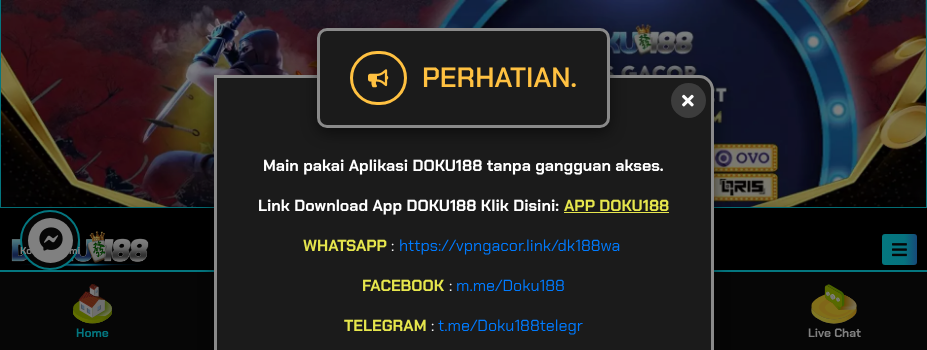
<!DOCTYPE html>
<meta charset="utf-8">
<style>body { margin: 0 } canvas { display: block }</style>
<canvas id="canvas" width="927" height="350"></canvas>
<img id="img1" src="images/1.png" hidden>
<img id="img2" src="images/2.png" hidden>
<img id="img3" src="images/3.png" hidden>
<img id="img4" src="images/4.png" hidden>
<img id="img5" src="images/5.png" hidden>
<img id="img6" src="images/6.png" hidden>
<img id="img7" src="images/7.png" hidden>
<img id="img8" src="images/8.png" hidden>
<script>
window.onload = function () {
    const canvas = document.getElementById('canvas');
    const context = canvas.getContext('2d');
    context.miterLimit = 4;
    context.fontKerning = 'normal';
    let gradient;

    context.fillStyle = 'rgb(4, 118, 127)';
    context.fillRect(0, 0, 927, 350);
    context.drawImage(document.getElementById('img1'), 1, 0, 925, 207);
    context.fillStyle = 'rgba(0, 0, 0, 0.15)';
    context.filter = 'blur(5px)';
    context.beginPath();
    context.rect(-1, 207, 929, 109);
    context.fill();
    context.filter = 'none';
    context.fillStyle = 'rgb(0, 0, 0)';
    context.fillRect(0, 208, 927, 62);
    context.fillStyle = 'rgb(6, 6, 6)';
    context.fillRect(0, 272, 927, 78);
    context.fillStyle = 'rgb(4, 118, 127)';
    context.fillRect(0, 270, 927, 2);
    context.fillStyle = 'rgba(0, 0, 0, 0.5)';
    context.filter = 'blur(7.5px)';
    context.beginPath();
    context.roundRect(214, 80, 500, 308, 15);
    context.fill();
    context.filter = 'none';
    context.fillStyle = 'rgb(27, 27, 27)';
    context.beginPath();
    context.roundRect(214, 75, 500, 275, [0, 15, 0, 0]);
    context.fill();
    context.beginPath();
    context.moveTo(215.5, 76.5);
    context.lineTo(699, 76.5);
    context.bezierCurveTo(706.5, 76.5, 712.5, 82.5, 712.5, 90);
    context.lineTo(712.5, 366.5);
    context.lineTo(229, 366.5);
    context.bezierCurveTo(221.5, 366.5, 215.5, 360.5, 215.5, 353);
    context.closePath();
    context.strokeStyle = 'rgb(138, 138, 138)';
    context.lineWidth = 3;
    context.stroke();
    context.fillStyle = 'rgba(0, 0, 0, 0.5)';
    context.filter = 'blur(7.5px)';
    context.beginPath();
    context.roundRect(317, 33, 293, 100, 10);
    context.fill();
    context.filter = 'none';
    context.fillStyle = 'rgb(27, 27, 27)';
    context.beginPath();
    context.roundRect(318.5, 29.5, 290, 97, 8.5);
    context.fill();
    context.stroke();
    context.beginPath();
    context.roundRect(351.5, 52.5, 54, 51, 25.5);
    context.strokeStyle = 'rgb(255, 193, 65)';
    context.stroke();
    context.drawImage(document.getElementById('img2'), 368, 69, 21, 19);
    context.fillStyle = 'rgb(60, 60, 60)';
    context.beginPath();
    context.arc(688.5, 100.5, 17.5, 0, 2 * Math.PI);
    context.fill();
    context.drawImage(document.getElementById('img3'), 682, 94, 12, 13);
    context.fillStyle = 'rgb(230, 230, 77)';
    context.fillRect(564, 212, 105, 1);
    context.drawImage(document.getElementById('img4'), 11, 231, 138, 36);
    gradient = context.createLinearGradient(882, 250, 917, 250);
    gradient.addColorStop(0, 'rgb(4, 120, 127)');
    gradient.addColorStop(0.64, 'rgb(6, 114, 127)');
    gradient.addColorStop(0.72, 'rgb(9, 106, 125)');
    gradient.addColorStop(1, 'rgb(23, 73, 122)');
    context.fillStyle = gradient;
    context.beginPath();
    context.roundRect(882, 234, 35, 31, 3);
    context.fill();
    context.drawImage(document.getElementById('img5'), 892, 243, 15, 14);
    context.fillStyle = 'rgb(6, 6, 6)';
    context.beginPath();
    context.arc(50, 240, 29, 0, 2 * Math.PI);
    context.fill();
    context.strokeStyle = 'rgb(4, 118, 127)';
    context.lineWidth = 2;
    context.stroke();
    context.fillStyle = 'rgb(128, 128, 128)';
    context.beginPath();
    context.arc(50.5, 240.5, 22.5, 0, 2 * Math.PI);
    context.fill();
    context.drawImage(document.getElementById('img6'), 39, 227, 24, 24);
    context.drawImage(document.getElementById('img7'), 73, 284, 39, 40);
    context.drawImage(document.getElementById('img8'), 811, 284, 46, 40);
    context.font = '600 28px Chakra Petch';
    context.fillStyle = 'rgb(255, 193, 65)';
    context.fillText('PERHATIAN.', 422, 87);
    context.font = 'bold 16px Chakra Petch';
    context.fillStyle = 'rgb(255, 255, 255)';
    context.fillText('Main pakai Aplikasi DOKU188 tanpa gangguan akses.', 263, 171);
    context.fillText('Link Download App DOKU188 Klik Disini:', 258, 211);
    context.fillStyle = 'rgb(230, 230, 77)';
    context.fillText('APP DOKU188', 564, 211);
    context.fillText('WHATSAPP', 303, 251);
    context.font = '16px Chakra Petch';
    context.fillStyle = 'rgb(255, 255, 255)';
    context.fillText(':', 391, 251);
    context.fillStyle = 'rgb(0, 123, 255)';
    context.fillText('https://vpngacor.link/dk188wa', 399, 251);
    context.font = 'bold 16px Chakra Petch';
    context.fillStyle = 'rgb(230, 230, 77)';
    context.fillText('FACEBOOK', 362, 291);
    context.font = '16px Chakra Petch';
    context.fillStyle = 'rgb(255, 255, 255)';
    context.fillText(':', 449, 291);
    context.fillStyle = 'rgb(0, 123, 255)';
    context.fillText('m.me/Doku188', 456, 291);
    context.font = 'bold 16px Chakra Petch';
    context.fillStyle = 'rgb(230, 230, 77)';
    context.fillText('TELEGRAM', 344, 331);
    context.font = '16px Chakra Petch';
    context.fillStyle = 'rgb(255, 255, 255)';
    context.fillText(':', 431, 331);
    context.fillStyle = 'rgb(0, 123, 255)';
    context.fillText('t.me/Doku188telegr', 438, 331);
    context.font = 'bold 10px Chakra Petch';
    context.fillStyle = 'rgb(128, 128, 128)';
    context.fillText('Ko', 20, 254);
    context.fillText('mi', 69, 254);
    context.font = 'bold 12px Chakra Petch';
    context.fillStyle = 'rgb(4, 118, 127)';
    context.fillText('Home', 76, 337);
    context.fillStyle = 'rgb(128, 128, 128)';
    context.fillText('Live Chat', 808, 337);
};
</script>
